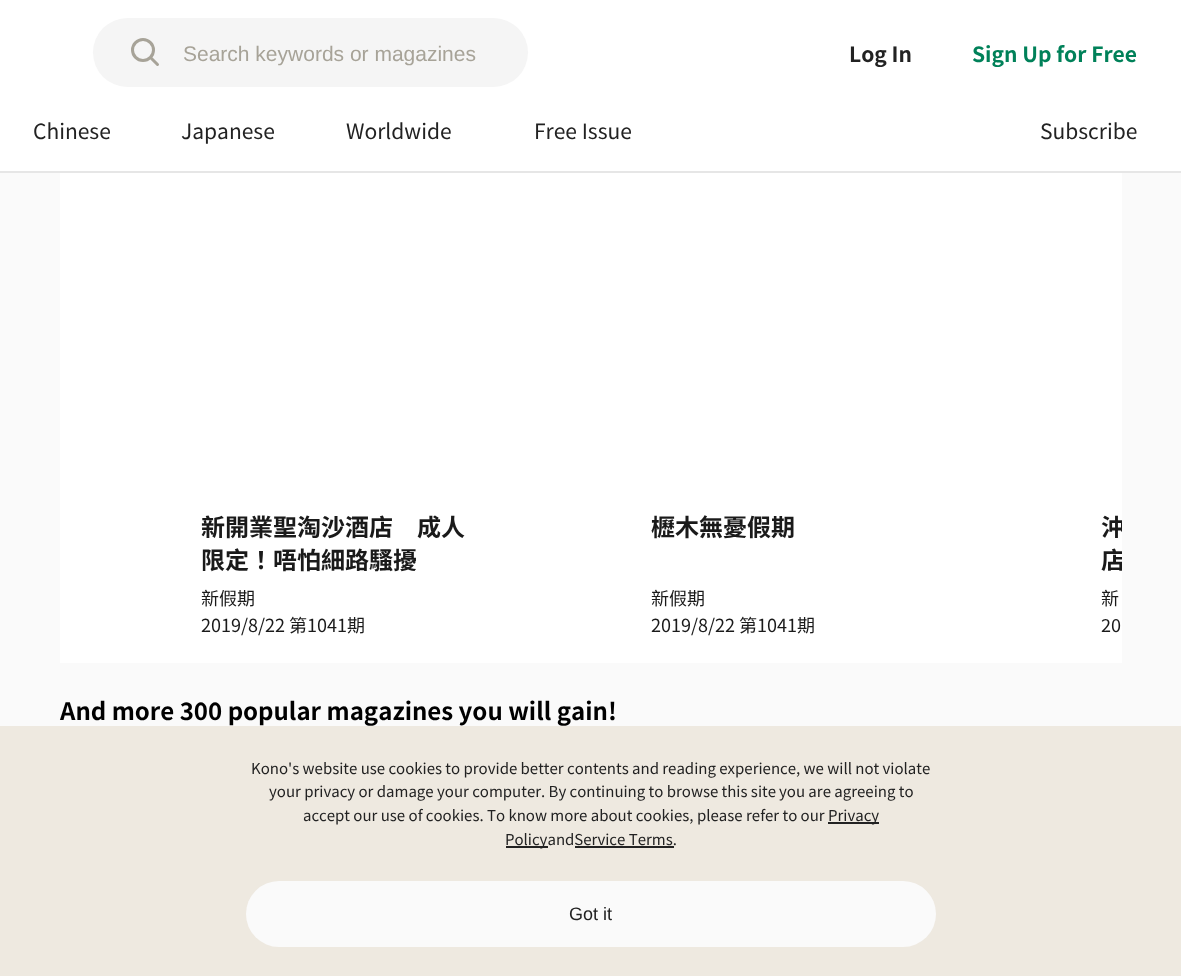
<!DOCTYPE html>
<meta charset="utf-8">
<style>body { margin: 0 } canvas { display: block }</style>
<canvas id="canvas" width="1181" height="976"></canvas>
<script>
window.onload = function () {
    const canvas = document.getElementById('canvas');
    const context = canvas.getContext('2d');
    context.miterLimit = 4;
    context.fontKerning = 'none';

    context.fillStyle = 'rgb(250, 250, 250)';
    context.fillRect(0, 0, 1181, 976);
    context.fillStyle = 'rgb(230, 230, 230)';
    context.fillRect(0, 171, 1181, 2);
    context.fillStyle = 'rgb(255, 255, 255)';
    context.fillRect(0, 0, 1181, 171);
    context.fillStyle = 'rgb(245, 245, 245)';
    context.beginPath();
    context.roundRect(93, 18, 75, 69, [34.5, 0, 0, 34.5]);
    context.fill();
    context.beginPath();
    context.arc(143, 50, 10.5, 0, 2 * Math.PI);
    context.strokeStyle = 'rgb(167, 163, 152)';
    context.lineWidth = 3;
    context.stroke();
    context.beginPath();
    context.moveTo(151.5, 58.5);
    context.lineTo(157.5, 64.5);
    context.lineCap = 'round';
    context.stroke();
    context.beginPath();
    context.roundRect(168, 18, 360, 69, [0, 34.5, 34.5, 0]);
    context.fill();
    context.fillStyle = 'rgb(255, 255, 255)';
    context.fillRect(60, 173, 1062, 490);
    context.fillStyle = 'rgb(238, 233, 224)';
    context.fillRect(0, 726, 1181, 250);
    context.fillStyle = 'rgb(34, 34, 34)';
    context.fillRect(828, 822, 51, 2);
    context.fillRect(506, 846, 42, 2);
    context.fillRect(575, 846, 99, 2);
    context.fillStyle = 'rgb(250, 250, 250)';
    context.beginPath();
    context.roundRect(246, 881, 690, 66, 33);
    context.fill();
    context.font = '21px Liberation Sans';
    context.fillStyle = 'rgb(167, 163, 152)';
    context.fillText('Search keywords or magazines', 183, 61);
    context.font = 'bold 21px Noto Sans TC';
    context.fillStyle = 'rgb(34, 34, 34)';
    context.fillText('Log In', 849, 62);
    context.fillStyle = 'rgb(0, 129, 89)';
    context.fillText('Sign Up for Free', 972, 62);
    context.font = '21px Noto Sans TC';
    context.fillStyle = 'rgb(34, 34, 34)';
    context.fillText('Chinese', 33, 139);
    context.fillText('Japanese', 181, 139);
    context.fillText('Worldwide', 346, 139);
    context.fillText('Free Issue', 534, 139);
    context.fillText('Subscribe', 1040, 139);
    context.font = 'bold 24px Noto Sans TC';
    context.fillStyle = 'rgb(26, 26, 26)';
    context.fillText('新開業聖淘沙酒店　成人', 201, 536);
    context.fillText('限定！唔怕細路騷擾', 201, 569);
    context.font = '18px Noto Sans TC';
    context.fillText('新假期', 201, 605);
    context.fillText('2019/8/22 第1041期', 201, 632);
    context.font = 'bold 24px "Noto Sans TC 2"';
    context.fillText('櫪木無憂', 651, 536);
    context.font = 'bold 24px Noto Sans TC';
    context.fillText('假', 747, 536);
    context.font = 'bold 24px "Noto Sans TC 2"';
    context.fillText('期', 771, 536);
    context.font = '18px Noto Sans TC';
    context.fillText('新假期', 651, 605);
    context.fillText('2019/8/22 第1041期', 651, 632);
    context.save();
    context.beginPath();
    context.rect(1101, 509, 21, 66);
    context.clip();
    context.font = 'bold 24px "Noto Sans TC 2"';
    context.fillText('沖', 1101, 536);
    context.fillText('店', 1101, 569);
    context.restore();
    context.fillText('新', 1101, 605);
    context.fillText('20', 1101, 632);
    context.font = 'bold 24px Noto Sans TC';
    context.fillStyle = 'rgb(0, 0, 0)';
    context.fillText('And more 300 popular magazines you will gain!', 60, 720);
    context.font = '15px Noto Sans TC';
    context.fillStyle = 'rgb(34, 34, 34)';
    context.fillText('Kono\'s website use cookies to provide better', 251, 774);
    context.fillText('contents and reading experience, we will not violate', 567, 774);
    context.fillText('your privacy or damage your computer. By continuing to browse this site', 269, 797);
    context.fillText('you are agreeing to', 779, 797);
    context.fillText('accept our use of cookies. To know more about cookies,', 303, 821);
    context.fillText('please refer to our', 697, 821);
    context.fillText('Privacy', 828, 821);
    context.fillText('PolicyandService Terms.', 505, 845);
    context.font = '18px Liberation Sans';
    context.fillText('Got it', 569, 920);
};
</script>
